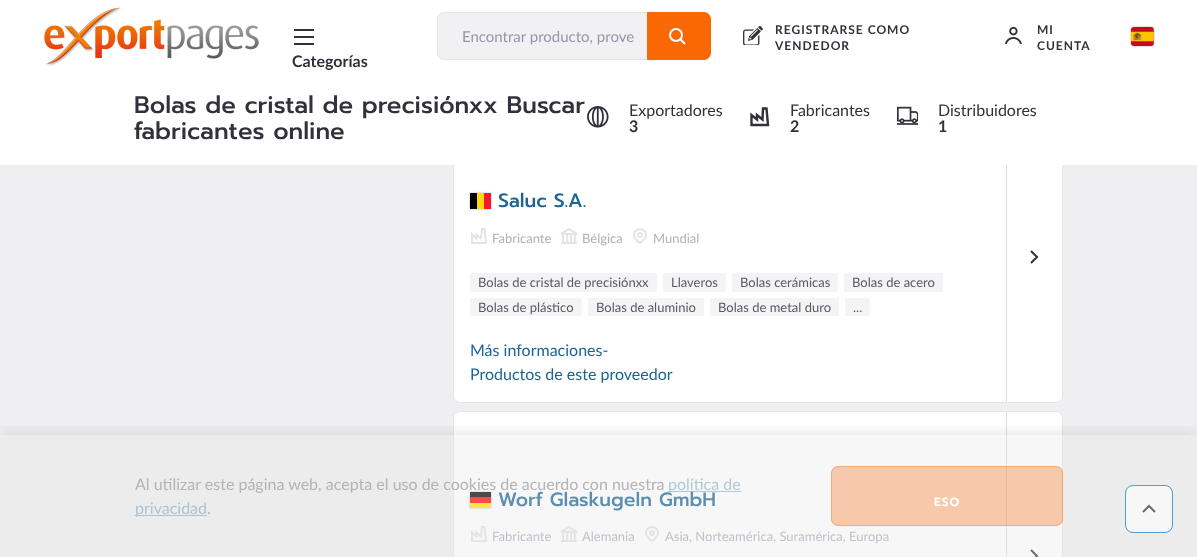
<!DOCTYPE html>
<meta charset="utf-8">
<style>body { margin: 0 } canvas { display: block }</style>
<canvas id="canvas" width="1197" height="557"></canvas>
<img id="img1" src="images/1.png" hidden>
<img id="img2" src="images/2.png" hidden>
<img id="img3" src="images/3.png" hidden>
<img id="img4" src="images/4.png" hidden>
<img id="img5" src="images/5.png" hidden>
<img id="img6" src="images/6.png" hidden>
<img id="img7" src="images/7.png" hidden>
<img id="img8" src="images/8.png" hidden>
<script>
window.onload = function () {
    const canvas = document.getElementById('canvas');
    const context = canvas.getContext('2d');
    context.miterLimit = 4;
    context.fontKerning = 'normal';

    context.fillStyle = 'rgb(239, 239, 241)';
    context.fillRect(0, 0, 1197, 557);
    context.fillStyle = 'rgb(255, 255, 255)';
    context.beginPath();
    context.roundRect(453, 112, 610, 291, 7);
    context.fill();
    context.beginPath();
    context.roundRect(453.5, 112.5, 609, 290, 6.5);
    context.strokeStyle = 'rgba(49, 49, 59, 0.12)';
    context.stroke();
    context.fillRect(0, 0, 1197, 165);
    context.drawImage(document.getElementById('img1'), 44, 7, 215, 59);
    context.fillStyle = 'rgb(241, 241, 244)';
    context.beginPath();
    context.roundRect(437.5, 12.5, 210, 47, [6.5, 0, 0, 6.5]);
    context.fill();
    context.strokeStyle = 'rgb(227, 227, 232)';
    context.stroke();
    context.fillStyle = 'rgb(250, 103, 5)';
    context.beginPath();
    context.roundRect(647.5, 12.5, 63, 47, [0, 6.5, 6.5, 0]);
    context.fill();
    context.strokeStyle = 'rgb(250, 103, 5)';
    context.stroke();
    context.beginPath();
    context.arc(676, 35, 6, 0, 2 * Math.PI);
    context.strokeStyle = 'rgb(255, 255, 255)';
    context.lineWidth = 2;
    context.stroke();
    context.beginPath();
    context.moveTo(680.5, 39.5);
    context.lineTo(685, 44);
    context.stroke();
    context.drawImage(document.getElementById('img2'), 743, 26, 20, 19);
    context.drawImage(document.getElementById('img3'), 1004, 26, 18, 19);
    context.fillStyle = 'rgba(0, 0, 0, 0.3)';
    context.filter = 'blur(1px)';
    context.beginPath();
    context.roundRect(1131, 27, 23, 19, 3);
    context.fill();
    context.filter = 'none';
    context.drawImage(document.getElementById('img4'), 1131, 27, 23, 19);
    context.fillStyle = 'rgb(49, 49, 59)';
    context.fillRect(294, 43, 20, 2);
    context.fillRect(294, 36, 20, 2);
    context.fillRect(294, 29, 20, 2);
    context.drawImage(document.getElementById('img5'), 587, 106, 22, 22);
    context.beginPath();
    context.moveTo(768, 125);
    context.lineTo(766.5, 108.5);
    context.lineTo(763, 108.5);
    context.lineTo(762.5, 119.5);
    context.lineTo(757, 115);
    context.lineTo(757, 119.5);
    context.lineTo(751.5, 115);
    context.lineTo(751.5, 125);
    context.closePath();
    context.strokeStyle = 'rgb(49, 49, 59)';
    context.lineWidth = 2.4;
    context.stroke();
    context.drawImage(document.getElementById('img6'), 897, 106, 21, 19);
    context.fillStyle = 'rgba(0, 0, 0, 0.3)';
    context.filter = 'blur(1px)';
    context.beginPath();
    context.rect(470, 193, 21, 16);
    context.fill();
    context.filter = 'none';
    context.fillStyle = 'rgb(0, 0, 0)';
    context.fillRect(470, 193, 7, 16);
    context.fillStyle = 'rgb(255, 217, 12)';
    context.fillRect(477, 193, 7, 16);
    context.fillStyle = 'rgb(243, 24, 48)';
    context.fillRect(484, 193, 7, 16);
    context.fillStyle = 'rgb(221, 221, 221)';
    context.fillRect(1006, 165, 1, 237);
    context.beginPath();
    context.moveTo(1031, 263);
    context.lineTo(1037, 257);
    context.lineTo(1031, 251);
    context.lineWidth = 2;
    context.stroke();
    context.beginPath();
    context.moveTo(486, 243);
    context.lineTo(484.5, 229);
    context.lineTo(482, 229);
    context.lineTo(481, 238.5);
    context.lineTo(476.5, 234.5);
    context.lineTo(476.5, 238.5);
    context.lineTo(472, 234.5);
    context.lineTo(472, 243);
    context.closePath();
    context.strokeStyle = 'rgb(227, 227, 232)';
    context.stroke();
    context.drawImage(document.getElementById('img7'), 560, 228, 18, 16);
    context.drawImage(document.getElementById('img8'), 633, 228, 14, 16);
    context.fillStyle = 'rgb(244, 244, 246)';
    context.beginPath();
    context.roundRect(470, 273, 187, 19, 2);
    context.fill();
    context.beginPath();
    context.roundRect(663, 273, 63, 19, 2);
    context.fill();
    context.beginPath();
    context.roundRect(732, 273, 106, 19, 2);
    context.fill();
    context.beginPath();
    context.roundRect(844, 273, 99, 19, 2);
    context.fill();
    context.beginPath();
    context.roundRect(470, 298, 112, 18, 2);
    context.fill();
    context.beginPath();
    context.roundRect(588, 298, 116, 18, 2);
    context.fill();
    context.beginPath();
    context.roundRect(710, 298, 129, 18, 2);
    context.fill();
    context.beginPath();
    context.roundRect(845, 298, 25, 18, 2);
    context.fill();
    context.fillStyle = 'rgb(255, 255, 255)';
    context.beginPath();
    context.roundRect(453, 411, 610, 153, 7);
    context.fill();
    context.beginPath();
    context.roundRect(453.5, 411.5, 609, 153, 6.5);
    context.strokeStyle = 'rgba(49, 49, 59, 0.12)';
    context.lineWidth = 1;
    context.stroke();
    context.fillStyle = 'rgba(0, 0, 0, 0.3)';
    context.filter = 'blur(1px)';
    context.beginPath();
    context.rect(470, 492, 21, 16);
    context.fill();
    context.filter = 'none';
    context.fillStyle = 'rgb(255, 230, 0)';
    context.fillRect(470, 503, 21, 5);
    context.fillStyle = 'rgb(0, 0, 0)';
    context.fillRect(470, 492, 21, 5);
    context.fillStyle = 'rgb(255, 0, 0)';
    context.fillRect(470, 497, 21, 6);
    context.fillStyle = 'rgb(221, 221, 221)';
    context.fillRect(1006, 412, 1, 145);
    context.beginPath();
    context.moveTo(1031, 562);
    context.lineTo(1037, 556);
    context.lineTo(1031, 550);
    context.strokeStyle = 'rgb(49, 49, 59)';
    context.lineWidth = 2;
    context.stroke();
    context.beginPath();
    context.moveTo(486, 541);
    context.lineTo(484.5, 527);
    context.lineTo(482, 527);
    context.lineTo(481, 536.5);
    context.lineTo(476.5, 532.5);
    context.lineTo(476.5, 536.5);
    context.lineTo(472, 532.5);
    context.lineTo(472, 541);
    context.closePath();
    context.strokeStyle = 'rgb(227, 227, 232)';
    context.stroke();
    context.drawImage(document.getElementById('img7'), 560, 526, 18, 16);
    context.drawImage(document.getElementById('img8'), 645, 526, 14, 16);
    context.fillStyle = 'rgb(255, 255, 255)';
    context.beginPath();
    context.roundRect(1125.5, 485.5, 47, 47, 7.5);
    context.fill();
    context.strokeStyle = 'rgb(1, 124, 204)';
    context.lineWidth = 1;
    context.stroke();
    context.beginPath();
    context.moveTo(1155, 512);
    context.lineTo(1149, 506);
    context.lineTo(1143, 512);
    context.strokeStyle = 'rgb(49, 49, 59)';
    context.lineWidth = 2;
    context.stroke();
    context.save();
    context.beginPath();
    context.rect(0, 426, 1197, 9);
    context.clip();
    context.fillStyle = 'rgba(0, 0, 0, 0.09)';
    context.filter = 'blur(7.5px)';
    context.beginPath();
    context.rect(0, 432, 1197, 122);
    context.fill();
    context.filter = 'none';
    context.restore();
    context.font = '15px Lato';
    context.fillStyle = 'rgb(149, 149, 168)';
    context.fillText('Encontrar producto, prove', 462, 42);
    context.letterSpacing = '1px';
    context.font = 'bold 12px Lato';
    context.fillStyle = 'rgb(49, 49, 59)';
    context.fillText('REGISTRARSE COMO', 775, 34);
    context.fillText('VENDEDOR', 775, 50);
    context.fillText('MI', 1037, 34);
    context.fillText('CUENTA', 1037, 50);
    context.letterSpacing = '0px';
    context.font = 'bold 16px Lato';
    context.fillText('Categorías', 292, 67);
    context.font = '500 24px Prompt';
    context.fillText('Bolas de cristal de precisiónxx Buscar', 134, 113);
    context.fillText('fabricantes online', 134, 139);
    context.font = '16px Lato';
    context.fillText('Exportadores', 629, 116);
    context.font = 'bold 16px Lato';
    context.fillText('3', 629, 132);
    context.font = '16px Lato';
    context.fillText('Fabricantes', 790, 116);
    context.font = 'bold 16px Lato';
    context.fillText('2', 790, 132);
    context.font = '16px Lato';
    context.fillText('Distribuidores', 938, 116);
    context.font = 'bold 16px Lato';
    context.fillText('1', 938, 132);
    context.font = '500 19.25px Prompt';
    context.fillStyle = 'rgb(27, 101, 149)';
    context.fillText('Saluc S.A.', 498, 207);
    context.font = '13px Lato';
    context.fillStyle = 'rgb(176, 176, 190)';
    context.fillText('Fabricante', 492, 243);
    context.fillText('Bélgica', 582, 243);
    context.fillText('Mundial', 653, 243);
    context.fillStyle = 'rgb(90, 90, 98)';
    context.fillText('Bolas de cristal de precisiónxx', 478, 287);
    context.fillText('Llaveros', 671, 287);
    context.fillText('Bolas cerámicas', 740, 287);
    context.fillText('Bolas de acero', 852, 287);
    context.fillText('Bolas de plástico', 478, 312);
    context.fillText('Bolas de aluminio', 596, 312);
    context.fillText('Bolas de metal duro', 718, 312);
    context.fillText('...', 853, 312);
    context.font = '16px Lato';
    context.fillStyle = 'rgb(27, 101, 149)';
    context.fillText('Más informaciones-', 470, 356);
    context.fillText('Productos de este proveedor', 470, 380);
    context.font = '500 19.25px Prompt';
    context.fillText('Worf Glaskugeln GmbH', 498, 506);
    context.font = '13px Lato';
    context.fillStyle = 'rgb(176, 176, 190)';
    context.fillText('Fabricante', 492, 541);
    context.fillText('Alemania', 582, 541);
    context.fillText('Asia, Norteamérica, Suramérica, Europa', 665, 541);
    context.fillStyle = 'rgba(230, 230, 230, 0.32)';
    context.fillRect(0, 435, 1197, 122);
    context.font = '16px Lato';
    context.fillStyle = 'rgb(180, 180, 184)';
    context.fillText('Al utilizar este página web, acepta el uso de cookies de acuerdo con nuestra', 135, 490);
    context.fillStyle = 'rgba(27, 101, 149, 0.32)';
    context.fillRect(668, 491, 73, 1);
    context.fillStyle = 'rgb(177, 201, 216)';
    context.fillText('política de', 668, 490);
    context.fillStyle = 'rgb(172, 195, 212)';
    context.fillRect(135, 515, 72, 1);
    context.fillText('privacidad', 135, 514);
    context.fillStyle = 'rgb(180, 180, 184)';
    context.fillText('.', 207, 514);
    context.fillStyle = 'rgba(250, 103, 5, 0.32)';
    context.beginPath();
    context.roundRect(831, 466, 232, 60, 7);
    context.fill();
    context.beginPath();
    context.roundRect(831.5, 466.5, 231, 59, 6.5);
    context.strokeStyle = 'rgba(250, 103, 5, 0.32)';
    context.lineWidth = 1;
    context.stroke();
    context.letterSpacing = '1px';
    context.font = '600 12px Prompt';
    context.fillStyle = 'rgb(255, 255, 255)';
    context.fillText('ESO', 934, 506);
};
</script>
